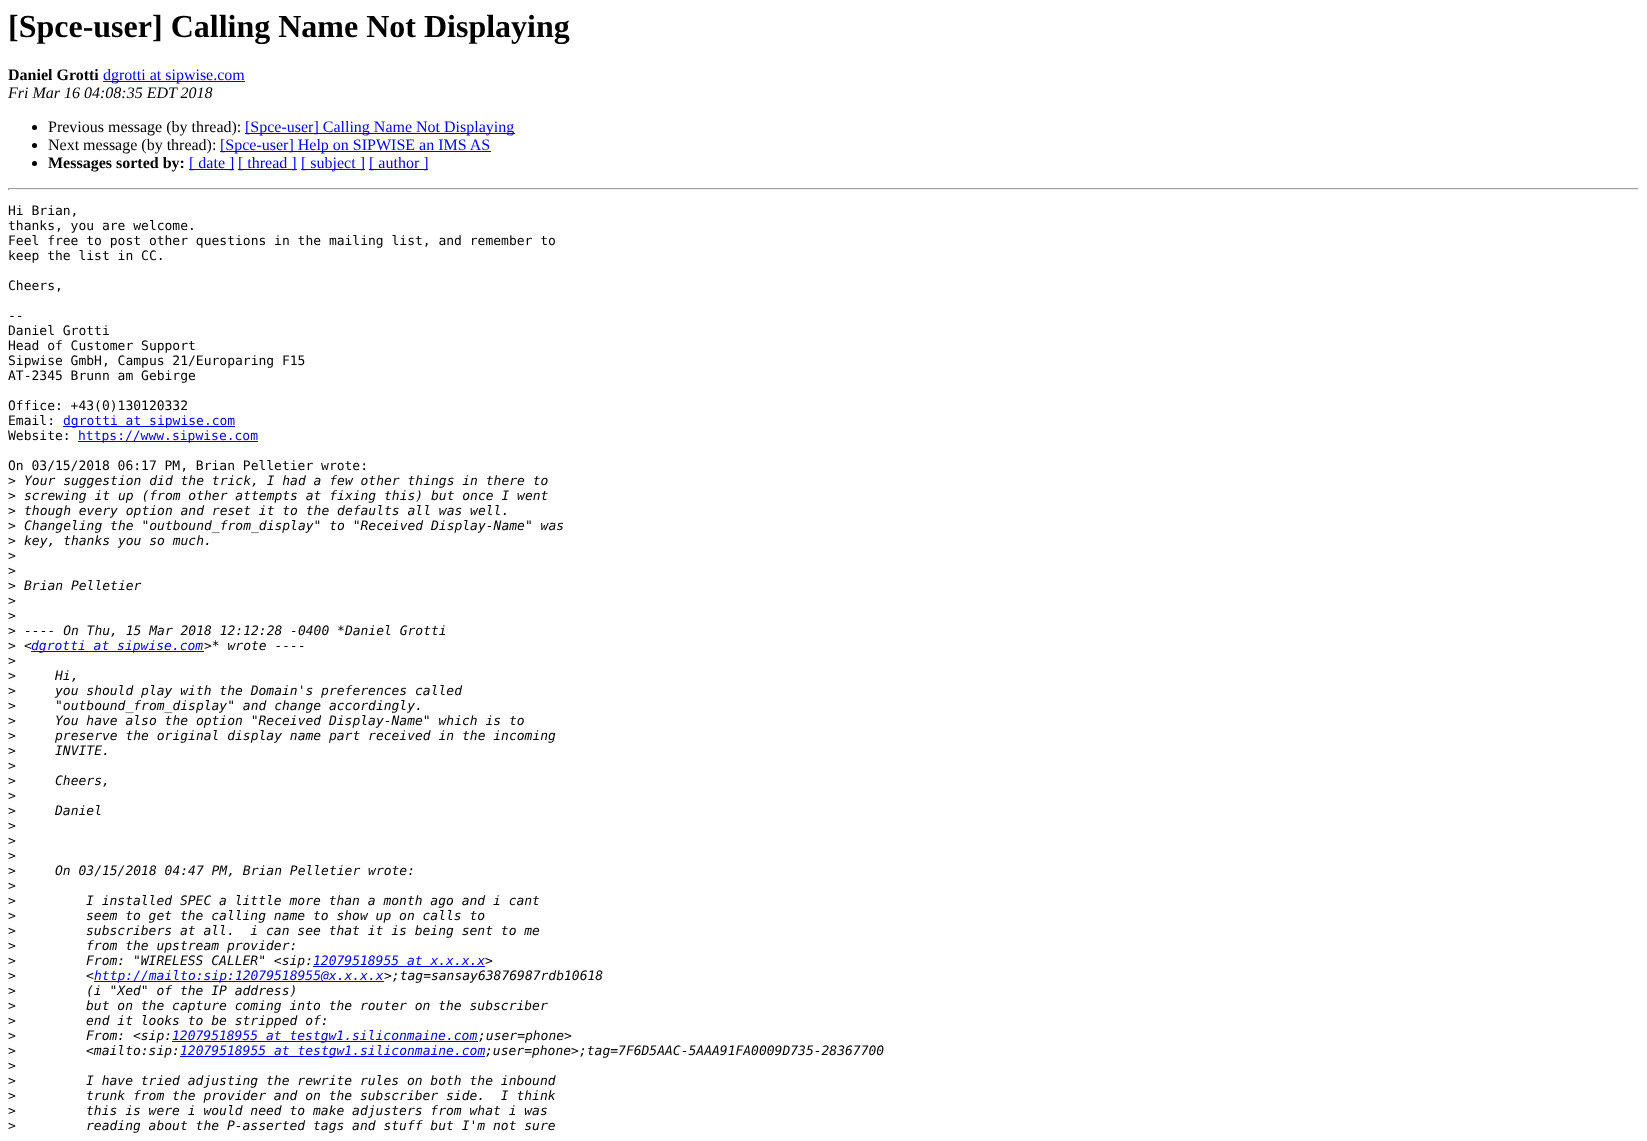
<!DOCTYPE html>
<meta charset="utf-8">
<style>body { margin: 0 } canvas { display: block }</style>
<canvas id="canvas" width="1647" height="1141"></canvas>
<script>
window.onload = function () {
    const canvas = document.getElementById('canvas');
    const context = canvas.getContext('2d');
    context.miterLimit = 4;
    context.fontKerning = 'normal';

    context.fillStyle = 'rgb(255, 255, 255)';
    context.fillRect(0, 0, 1647, 1141);
    context.fillStyle = 'rgb(0, 0, 238)';
    context.fillRect(103, 81, 142, 1);
    context.fillStyle = 'rgb(0, 0, 0)';
    context.beginPath();
    context.arc(34.5, 127.5, 2.5, 0, 2 * Math.PI);
    context.fill();
    context.fillStyle = 'rgb(0, 0, 238)';
    context.fillRect(245, 133, 270, 1);
    context.fillStyle = 'rgb(0, 0, 0)';
    context.beginPath();
    context.arc(34.5, 145.5, 2.5, 0, 2 * Math.PI);
    context.fill();
    context.fillStyle = 'rgb(0, 0, 238)';
    context.fillRect(220, 151, 271, 1);
    context.fillStyle = 'rgb(0, 0, 0)';
    context.beginPath();
    context.arc(34.5, 163.5, 2.5, 0, 2 * Math.PI);
    context.fill();
    context.fillStyle = 'rgb(0, 0, 238)';
    context.fillRect(189, 169, 45, 1);
    context.fillRect(238, 169, 59, 1);
    context.fillRect(301, 169, 64, 1);
    context.fillRect(369, 169, 59, 1);
    context.fillStyle = 'rgb(159, 159, 159)';
    context.fillRect(8, 188, 1631, 1);
    context.fillStyle = 'rgb(238, 238, 238)';
    context.fillRect(1638, 188, 1, 2);
    context.fillRect(8, 189, 1631, 1);
    context.fillStyle = 'rgb(159, 159, 159)';
    context.fillRect(8, 188, 1, 2);
    context.fillStyle = 'rgb(0, 0, 238)';
    context.fillRect(63, 426, 172, 1);
    context.fillRect(78, 441, 180, 1);
    context.fillRect(31, 651, 173, 1);
    context.fillRect(313, 966, 172, 1);
    context.fillRect(94, 981, 290, 1);
    context.fillRect(172, 1041, 306, 1);
    context.fillRect(180, 1056, 305, 1);
    context.font = 'bold 32px Liberation Serif';
    context.fillStyle = 'rgb(0, 0, 0)';
    context.fillText('[Spce-user] Calling Name Not Displaying', 8, 37);
    context.font = 'bold 16px Liberation Serif';
    context.fillText('Daniel Grotti', 8, 80);
    context.font = '16px Liberation Serif';
    context.fillStyle = 'rgb(0, 0, 238)';
    context.fillText('dgrotti at sipwise.com', 103, 80);
    context.font = 'italic 16px Liberation Serif';
    context.fillStyle = 'rgb(0, 0, 0)';
    context.fillText('Fri Mar 16 04:08:35 EDT 2018', 8, 98);
    context.font = '16px Liberation Serif';
    context.fillText('Previous message (by thread):', 48, 132);
    context.fillStyle = 'rgb(0, 0, 238)';
    context.fillText('[Spce-user] Calling Name Not Displaying', 245, 132);
    context.fillStyle = 'rgb(0, 0, 0)';
    context.fillText('Next message (by thread):', 48, 150);
    context.fillStyle = 'rgb(0, 0, 238)';
    context.fillText('[Spce-user] Help on SIPWISE an IMS AS', 220, 150);
    context.font = 'bold 16px Liberation Serif';
    context.fillStyle = 'rgb(0, 0, 0)';
    context.fillText('Messages sorted by:', 48, 168);
    context.font = '16px Liberation Serif';
    context.fillStyle = 'rgb(0, 0, 238)';
    context.fillText('[ date ]', 189, 168);
    context.fillText('[ thread ]', 238, 168);
    context.fillText('[ subject ]', 301, 168);
    context.fillText('[ author ]', 369, 168);
    context.font = '13px DejaVu Sans Mono';
    context.fillStyle = 'rgb(0, 0, 0)';
    context.fillText('Hi Brian,', 8, 215);
    context.fillText('thanks, you are welcome.', 8, 230);
    context.fillText('Feel free to post other questions in the mailing list, and remember to', 8, 245);
    context.fillText('keep the list in CC.', 8, 260);
    context.fillText('Cheers,', 8, 290);
    context.fillText('--', 8, 320);
    context.fillText('Daniel Grotti', 8, 335);
    context.fillText('Head of Customer Support', 8, 350);
    context.fillText('Sipwise GmbH, Campus 21/Europaring F15', 8, 365);
    context.fillText('AT-2345 Brunn am Gebirge', 8, 380);
    context.fillText('Office: +43(0)130120332', 8, 410);
    context.fillText('Email:', 8, 425);
    context.fillStyle = 'rgb(0, 0, 238)';
    context.fillText('dgrotti at sipwise.com', 63, 425);
    context.fillStyle = 'rgb(0, 0, 0)';
    context.fillText('Website:', 8, 440);
    context.fillStyle = 'rgb(0, 0, 238)';
    context.fillText('https://www.sipwise.com', 78, 440);
    context.fillStyle = 'rgb(0, 0, 0)';
    context.fillText('On 03/15/2018 06:17 PM, Brian Pelletier wrote:', 8, 470);
    context.fillText('>', 8, 485);
    context.font = 'italic 13px DejaVu Sans Mono';
    context.fillText('Your suggestion did the trick, I had a few other things in there to', 24, 485);
    context.font = '13px DejaVu Sans Mono';
    context.fillText('>', 8, 500);
    context.font = 'italic 13px DejaVu Sans Mono';
    context.fillText('screwing it up (from other attempts at fixing this) but once I went', 24, 500);
    context.font = '13px DejaVu Sans Mono';
    context.fillText('>', 8, 515);
    context.font = 'italic 13px DejaVu Sans Mono';
    context.fillText('though every option and reset it to the defaults all was well.', 24, 515);
    context.font = '13px DejaVu Sans Mono';
    context.fillText('>', 8, 530);
    context.font = 'italic 13px DejaVu Sans Mono';
    context.fillText('Changeling the "outbound_from_display" to "Received Display-Name" was', 24, 530);
    context.font = '13px DejaVu Sans Mono';
    context.fillText('>', 8, 545);
    context.font = 'italic 13px DejaVu Sans Mono';
    context.fillText('key, thanks you so much.', 24, 545);
    context.font = '13px DejaVu Sans Mono';
    context.fillText('>', 8, 560);
    context.fillText('>', 8, 575);
    context.fillText('>', 8, 590);
    context.font = 'italic 13px DejaVu Sans Mono';
    context.fillText('Brian Pelletier', 24, 590);
    context.font = '13px DejaVu Sans Mono';
    context.fillText('>', 8, 605);
    context.fillText('>', 8, 620);
    context.fillText('>', 8, 635);
    context.font = 'italic 13px DejaVu Sans Mono';
    context.fillText('---- On Thu, 15 Mar 2018 12:12:28 -0400 *Daniel Grotti', 24, 635);
    context.font = '13px DejaVu Sans Mono';
    context.fillText('>', 8, 650);
    context.font = 'italic 13px DejaVu Sans Mono';
    context.fillText('<', 24, 650);
    context.fillStyle = 'rgb(0, 0, 238)';
    context.fillText('dgrotti at sipwise.com', 31, 650);
    context.fillStyle = 'rgb(0, 0, 0)';
    context.fillText('>* wrote ----', 204, 650);
    context.font = '13px DejaVu Sans Mono';
    context.fillText('>', 8, 665);
    context.fillText('>', 8, 680);
    context.font = 'italic 13px DejaVu Sans Mono';
    context.fillText('Hi,', 55, 680);
    context.font = '13px DejaVu Sans Mono';
    context.fillText('>', 8, 695);
    context.font = 'italic 13px DejaVu Sans Mono';
    context.fillText('you should play with the Domain\'s preferences called', 55, 695);
    context.font = '13px DejaVu Sans Mono';
    context.fillText('>', 8, 710);
    context.font = 'italic 13px DejaVu Sans Mono';
    context.fillText('"outbound_from_display" and change accordingly.', 55, 710);
    context.font = '13px DejaVu Sans Mono';
    context.fillText('>', 8, 725);
    context.font = 'italic 13px DejaVu Sans Mono';
    context.fillText('You have also the option "Received Display-Name" which is to', 55, 725);
    context.font = '13px DejaVu Sans Mono';
    context.fillText('>', 8, 740);
    context.font = 'italic 13px DejaVu Sans Mono';
    context.fillText('preserve the original display name part received in the incoming', 55, 740);
    context.font = '13px DejaVu Sans Mono';
    context.fillText('>', 8, 755);
    context.font = 'italic 13px DejaVu Sans Mono';
    context.fillText('INVITE.', 55, 755);
    context.font = '13px DejaVu Sans Mono';
    context.fillText('>', 8, 770);
    context.fillText('>', 8, 785);
    context.font = 'italic 13px DejaVu Sans Mono';
    context.fillText('Cheers,', 55, 785);
    context.font = '13px DejaVu Sans Mono';
    context.fillText('>', 8, 800);
    context.fillText('>', 8, 815);
    context.font = 'italic 13px DejaVu Sans Mono';
    context.fillText('Daniel', 55, 815);
    context.font = '13px DejaVu Sans Mono';
    context.fillText('>', 8, 830);
    context.fillText('>', 8, 845);
    context.fillText('>', 8, 860);
    context.fillText('>', 8, 875);
    context.font = 'italic 13px DejaVu Sans Mono';
    context.fillText('On 03/15/2018 04:47 PM, Brian Pelletier wrote:', 55, 875);
    context.font = '13px DejaVu Sans Mono';
    context.fillText('>', 8, 890);
    context.fillText('>', 8, 905);
    context.font = 'italic 13px DejaVu Sans Mono';
    context.fillText('I installed SPEC a little more than a month ago and i cant', 86, 905);
    context.font = '13px DejaVu Sans Mono';
    context.fillText('>', 8, 920);
    context.font = 'italic 13px DejaVu Sans Mono';
    context.fillText('seem to get the calling name to show up on calls to', 86, 920);
    context.font = '13px DejaVu Sans Mono';
    context.fillText('>', 8, 935);
    context.font = 'italic 13px DejaVu Sans Mono';
    context.fillText('subscribers at all.  i can see that it is being sent to me', 86, 935);
    context.font = '13px DejaVu Sans Mono';
    context.fillText('>', 8, 950);
    context.font = 'italic 13px DejaVu Sans Mono';
    context.fillText('from the upstream provider:', 86, 950);
    context.font = '13px DejaVu Sans Mono';
    context.fillText('>', 8, 965);
    context.font = 'italic 13px DejaVu Sans Mono';
    context.fillText('From: "WIRELESS CALLER" <sip:', 86, 965);
    context.fillStyle = 'rgb(0, 0, 238)';
    context.fillText('12079518955 at x.x.x.x', 313, 965);
    context.fillStyle = 'rgb(0, 0, 0)';
    context.fillText('>', 485, 965);
    context.font = '13px DejaVu Sans Mono';
    context.fillText('>', 8, 980);
    context.font = 'italic 13px DejaVu Sans Mono';
    context.fillText('<', 86, 980);
    context.fillStyle = 'rgb(0, 0, 238)';
    context.fillText('http://mailto:sip:12079518955@x.x.x.x', 94, 980);
    context.fillStyle = 'rgb(0, 0, 0)';
    context.fillText('>;tag=sansay63876987rdb10618', 384, 980);
    context.font = '13px DejaVu Sans Mono';
    context.fillText('>', 8, 995);
    context.font = 'italic 13px DejaVu Sans Mono';
    context.fillText('(i "Xed" of the IP address)', 86, 995);
    context.font = '13px DejaVu Sans Mono';
    context.fillText('>', 8, 1010);
    context.font = 'italic 13px DejaVu Sans Mono';
    context.fillText('but on the capture coming into the router on the subscriber', 86, 1010);
    context.font = '13px DejaVu Sans Mono';
    context.fillText('>', 8, 1025);
    context.font = 'italic 13px DejaVu Sans Mono';
    context.fillText('end it looks to be stripped of:', 86, 1025);
    context.font = '13px DejaVu Sans Mono';
    context.fillText('>', 8, 1040);
    context.font = 'italic 13px DejaVu Sans Mono';
    context.fillText('From: <sip:', 86, 1040);
    context.fillStyle = 'rgb(0, 0, 238)';
    context.fillText('12079518955 at testgw1.siliconmaine.com', 172, 1040);
    context.fillStyle = 'rgb(0, 0, 0)';
    context.fillText(';user=phone>', 478, 1040);
    context.font = '13px DejaVu Sans Mono';
    context.fillText('>', 8, 1055);
    context.font = 'italic 13px DejaVu Sans Mono';
    context.fillText('<mailto:sip:', 86, 1055);
    context.fillStyle = 'rgb(0, 0, 238)';
    context.fillText('12079518955 at testgw1.siliconmaine.com', 180, 1055);
    context.fillStyle = 'rgb(0, 0, 0)';
    context.fillText(';user=phone>;tag=7F6D5AAC-5AAA91FA0009D735-28367700', 485, 1055);
    context.font = '13px DejaVu Sans Mono';
    context.fillText('>', 8, 1070);
    context.fillText('>', 8, 1085);
    context.font = 'italic 13px DejaVu Sans Mono';
    context.fillText('I have tried adjusting the rewrite rules on both the inbound', 86, 1085);
    context.font = '13px DejaVu Sans Mono';
    context.fillText('>', 8, 1100);
    context.font = 'italic 13px DejaVu Sans Mono';
    context.fillText('trunk from the provider and on the subscriber side.  I think', 86, 1100);
    context.font = '13px DejaVu Sans Mono';
    context.fillText('>', 8, 1115);
    context.font = 'italic 13px DejaVu Sans Mono';
    context.fillText('this is were i would need to make adjusters from what i was', 86, 1115);
    context.font = '13px DejaVu Sans Mono';
    context.fillText('>', 8, 1130);
    context.font = 'italic 13px DejaVu Sans Mono';
    context.fillText('reading about the P-asserted tags and stuff but I\'m not sure', 86, 1130);
};
</script>
